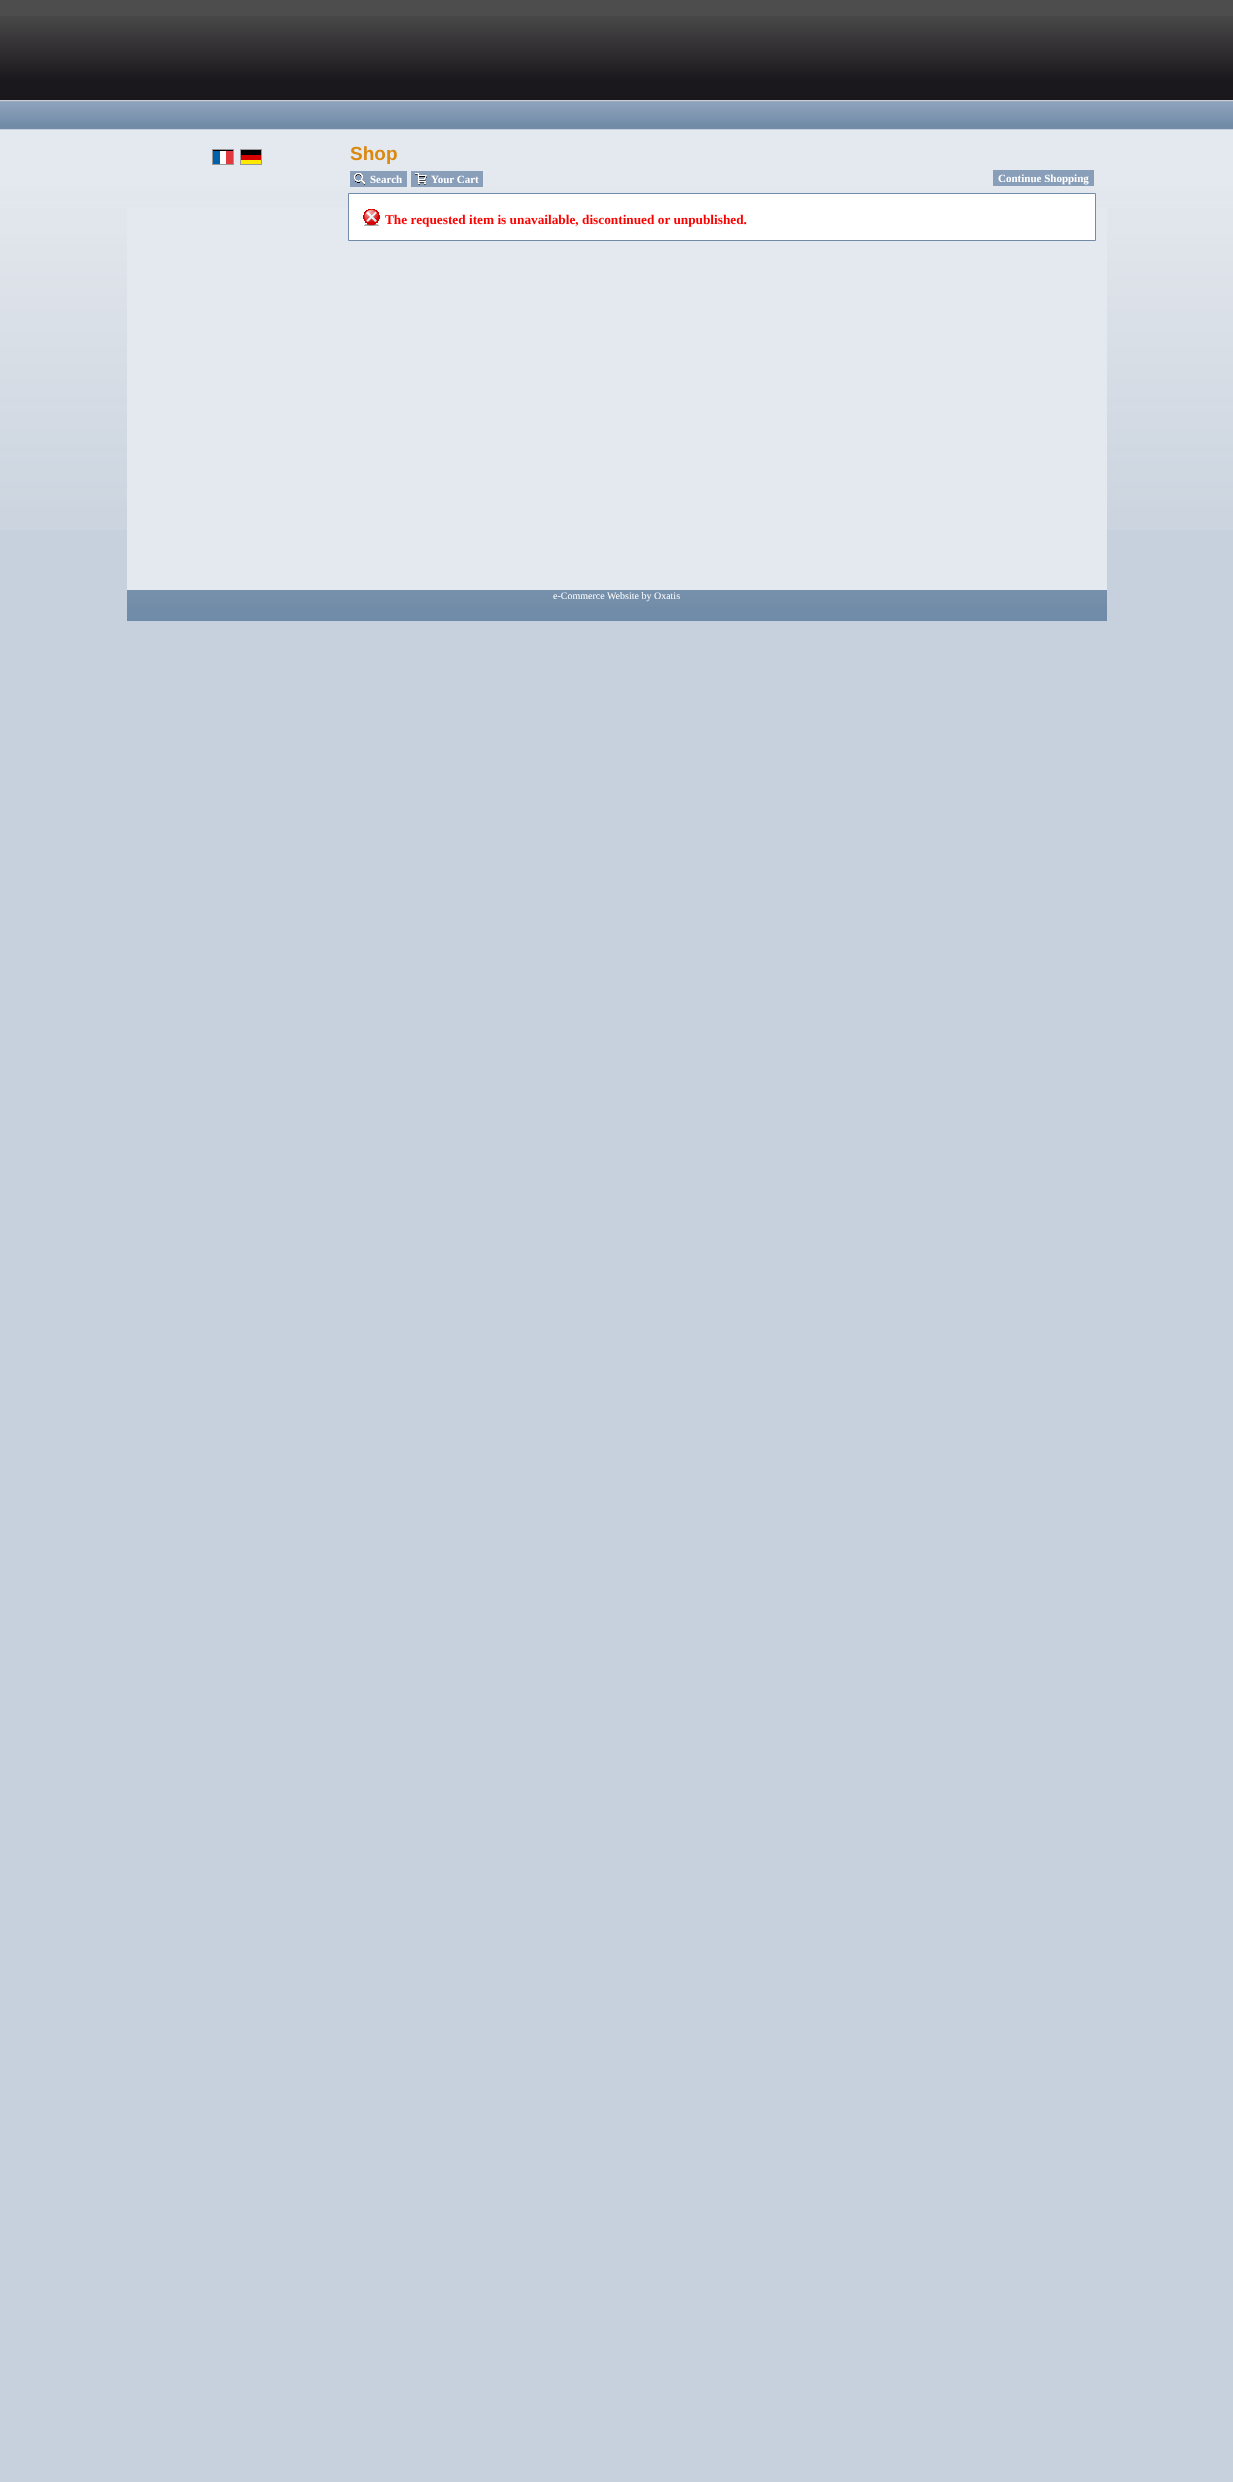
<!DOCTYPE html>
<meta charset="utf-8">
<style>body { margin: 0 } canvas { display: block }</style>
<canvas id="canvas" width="1233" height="2482"></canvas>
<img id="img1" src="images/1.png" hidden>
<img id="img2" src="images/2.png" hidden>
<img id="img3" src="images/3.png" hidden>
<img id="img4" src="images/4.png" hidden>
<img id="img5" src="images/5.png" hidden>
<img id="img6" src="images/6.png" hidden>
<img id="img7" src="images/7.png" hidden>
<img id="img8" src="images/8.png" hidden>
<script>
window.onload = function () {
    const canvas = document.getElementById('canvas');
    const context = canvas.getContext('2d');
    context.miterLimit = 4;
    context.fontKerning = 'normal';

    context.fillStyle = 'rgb(199, 209, 221)';
    context.fillRect(0, 0, 1233, 2482);
    context.fillStyle = 'rgb(77, 77, 77)';
    context.fillRect(0, 0, 1233, 16);
    context.drawImage(document.getElementById('img1'), 0, 16, 1233, 114);
    context.drawImage(document.getElementById('img2'), 0, 130, 1233, 400);
    context.fillStyle = 'rgb(228, 233, 239)';
    context.fillRect(127, 208, 980, 382);
    context.drawImage(document.getElementById('img3'), 213, 150, 20, 14);
    context.strokeStyle = 'rgb(153, 153, 153)';
    context.strokeRect(212.5, 149.5, 21, 15);
    context.drawImage(document.getElementById('img4'), 241, 150, 20, 14);
    context.strokeRect(240.5, 149.5, 21, 15);
    context.fillStyle = 'rgb(137, 158, 185)';
    context.fillRect(350, 171, 57, 16);
    context.drawImage(document.getElementById('img5'), 354, 173, 11, 12);
    context.fillRect(411, 171, 72, 16);
    context.drawImage(document.getElementById('img6'), 415, 173, 12, 12);
    context.fillRect(993, 170, 101, 16);
    context.fillStyle = 'rgb(255, 255, 255)';
    context.beginPath();
    context.rect(348.5, 193.5, 747, 47);
    context.fill();
    context.strokeStyle = 'rgb(113, 139, 168)';
    context.stroke();
    context.drawImage(document.getElementById('img7'), 363, 209, 17, 17);
    context.drawImage(document.getElementById('img8'), 127, 590, 980, 31);
    context.font = 'bold 19px Liberation Sans';
    context.fillStyle = 'rgb(218, 136, 14)';
    context.fillText('Shop', 350, 160);
    context.font = 'bold 11px Liberation Serif';
    context.fillStyle = 'rgb(255, 255, 255)';
    context.fillText('Search', 370, 183);
    context.fillText('Your Cart', 431, 183);
    context.fillText('Continue Shopping', 998, 182);
    context.font = 'bold 13.3px Liberation Serif';
    context.fillStyle = 'rgb(255, 0, 0)';
    context.fillText('The requested item is unavailable, discontinued or unpublished.', 385, 224);
    context.font = '10px Liberation Serif';
    context.fillStyle = 'rgb(255, 255, 255)';
    context.fillText('e-Commerce Website by Oxatis', 553, 599);
};
</script>
